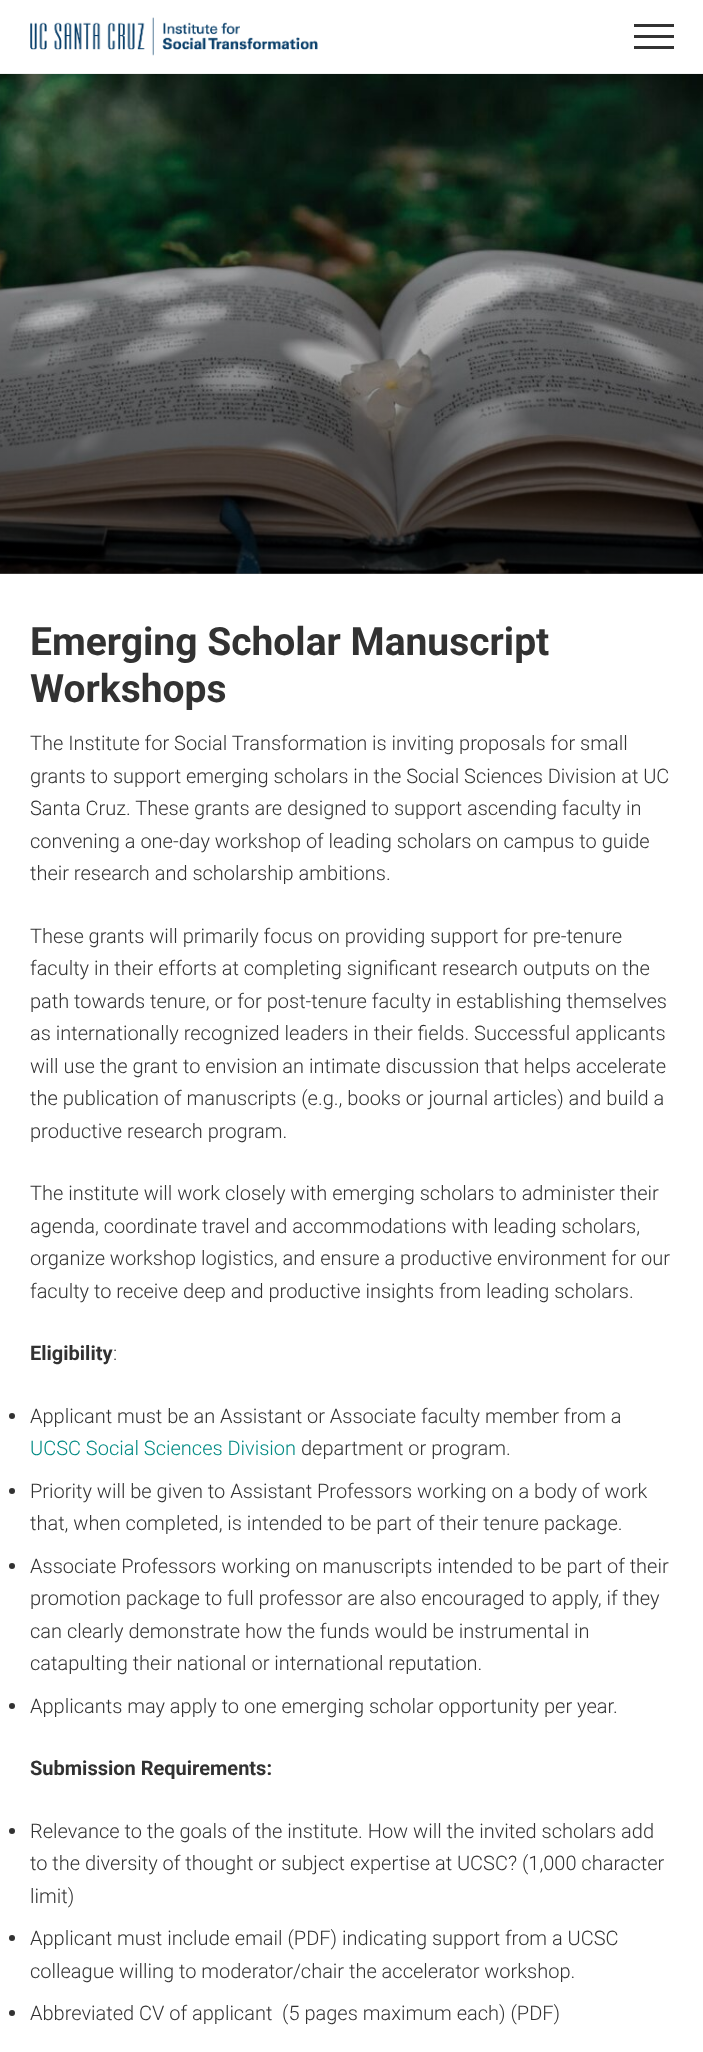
<!DOCTYPE html>
<meta charset="utf-8">
<style>body { margin: 0 } canvas { display: block }</style>
<canvas id="canvas" width="703" height="2052"></canvas>
<img id="img1" src="images/1.png" hidden>
<img id="img2" src="images/2.png" hidden>
<script>
window.onload = function () {
    const canvas = document.getElementById('canvas');
    const context = canvas.getContext('2d');
    context.miterLimit = 4;
    context.fontKerning = 'normal';
    let gradient;

    context.fillStyle = 'rgb(255, 255, 255)';
    context.fillRect(0, 0, 703, 2052);
    context.fillStyle = 'rgb(242, 242, 242)';
    context.fillRect(0, 73, 703, 1);
    context.drawImage(document.getElementById('img1'), 30, 17, 288, 39);
    context.fillStyle = 'rgb(50, 50, 50)';
    context.fillRect(634, 35, 40, 3);
    context.fillRect(634, 24, 40, 3);
    context.fillRect(634, 46, 40, 3);
    context.drawImage(document.getElementById('img2'), 0, 74, 703, 500);
    gradient = context.createLinearGradient(352, 74, 352, 574);
    gradient.addColorStop(0.25, 'rgba(0, 0, 0, 0)');
    gradient.addColorStop(1, 'rgba(0, 0, 0, 0.6)');
    context.fillStyle = gradient;
    context.fillRect(0, 220, 703, 354);
    context.fillStyle = 'rgb(50, 50, 50)';
    context.beginPath();
    context.arc(12, 1416, 3, 0, 2 * Math.PI);
    context.fill();
    context.beginPath();
    context.arc(12, 1491, 3, 0, 2 * Math.PI);
    context.fill();
    context.beginPath();
    context.arc(12, 1566, 3, 0, 2 * Math.PI);
    context.fill();
    context.beginPath();
    context.arc(12, 1706, 3, 0, 2 * Math.PI);
    context.fill();
    context.beginPath();
    context.arc(12, 1831, 3, 0, 2 * Math.PI);
    context.fill();
    context.beginPath();
    context.arc(12, 1938, 3, 0, 2 * Math.PI);
    context.fill();
    context.beginPath();
    context.arc(12, 2013, 3, 0, 2 * Math.PI);
    context.fill();
    context.font = 'bold 39px Roboto';
    context.fillText('Emerging Scholar Manuscript', 30, 655);
    context.fillText('Workshops', 30, 702);
    context.font = '300 20px Roboto';
    context.fillText('The Institute for Social Transformation is inviting proposals for small', 30, 750);
    context.fillText('grants to support emerging scholars in the Social Sciences Division at UC', 30, 783);
    context.fillText('Santa Cruz. These grants are designed to support ascending faculty in', 30, 815);
    context.fillText('convening a one-day workshop of leading scholars on campus to guide', 30, 848);
    context.fillText('their research and scholarship ambitions.', 30, 880);
    context.fillText('These grants will primarily focus on providing support for pre-tenure', 30, 943);
    context.fillText('faculty in their efforts at completing significant research outputs on the', 30, 975);
    context.fillText('path towards tenure, or for post-tenure faculty in establishing themselves', 30, 1008);
    context.fillText('as internationally recognized leaders in their fields. Successful applicants', 30, 1040);
    context.fillText('will use the grant to envision an intimate discussion that helps accelerate', 30, 1073);
    context.fillText('the publication of manuscripts (e.g., books or journal articles) and build a', 30, 1105);
    context.fillText('productive research program.', 30, 1138);
    context.fillText('The institute will work closely with emerging scholars to administer their', 30, 1200);
    context.fillText('agenda, coordinate travel and accommodations with leading scholars,', 30, 1233);
    context.fillText('organize workshop logistics, and ensure a productive environment for our', 30, 1265);
    context.fillText('faculty to receive deep and productive insights from leading scholars.', 30, 1298);
    context.font = 'bold 20px Roboto';
    context.fillText('Eligibility', 30, 1360);
    context.font = '300 20px Roboto';
    context.fillText(':', 113, 1360);
    context.fillText('Applicant must be an Assistant or Associate faculty member from a', 30, 1423);
    context.fillStyle = 'rgb(0, 138, 131)';
    context.fillText('UCSC Social Sciences Division', 30, 1455);
    context.fillStyle = 'rgb(50, 50, 50)';
    context.fillText('department or program.', 301, 1455);
    context.fillText('Priority will be given to Assistant Professors working on a body of work', 30, 1498);
    context.fillText('that, when completed, is intended to be part of their tenure package.', 30, 1530);
    context.fillText('Associate Professors working on manuscripts intended to be part of their', 30, 1573);
    context.fillText('promotion package to full professor are also encouraged to apply, if they', 30, 1605);
    context.fillText('can clearly demonstrate how the funds would be instrumental in', 30, 1638);
    context.fillText('catapulting their national or international reputation.', 30, 1670);
    context.fillText('Applicants may apply to one emerging scholar opportunity per year.', 30, 1713);
    context.font = 'bold 20px Roboto';
    context.fillText('Submission Requirements:', 30, 1775);
    context.font = '300 20px Roboto';
    context.fillText('Relevance to the goals of the institute. How will the invited scholars add', 30, 1838);
    context.fillText('to the diversity of thought or subject expertise at UCSC? (1,000 character', 30, 1870);
    context.fillText('limit)', 30, 1903);
    context.fillText('Applicant must include email (PDF) indicating support from a UCSC', 30, 1945);
    context.fillText('colleague willing to moderator/chair the accelerator workshop.', 30, 1978);
    context.fillText('Abbreviated CV of applicant  (5 pages maximum each) (PDF)', 30, 2020);
};
</script>
